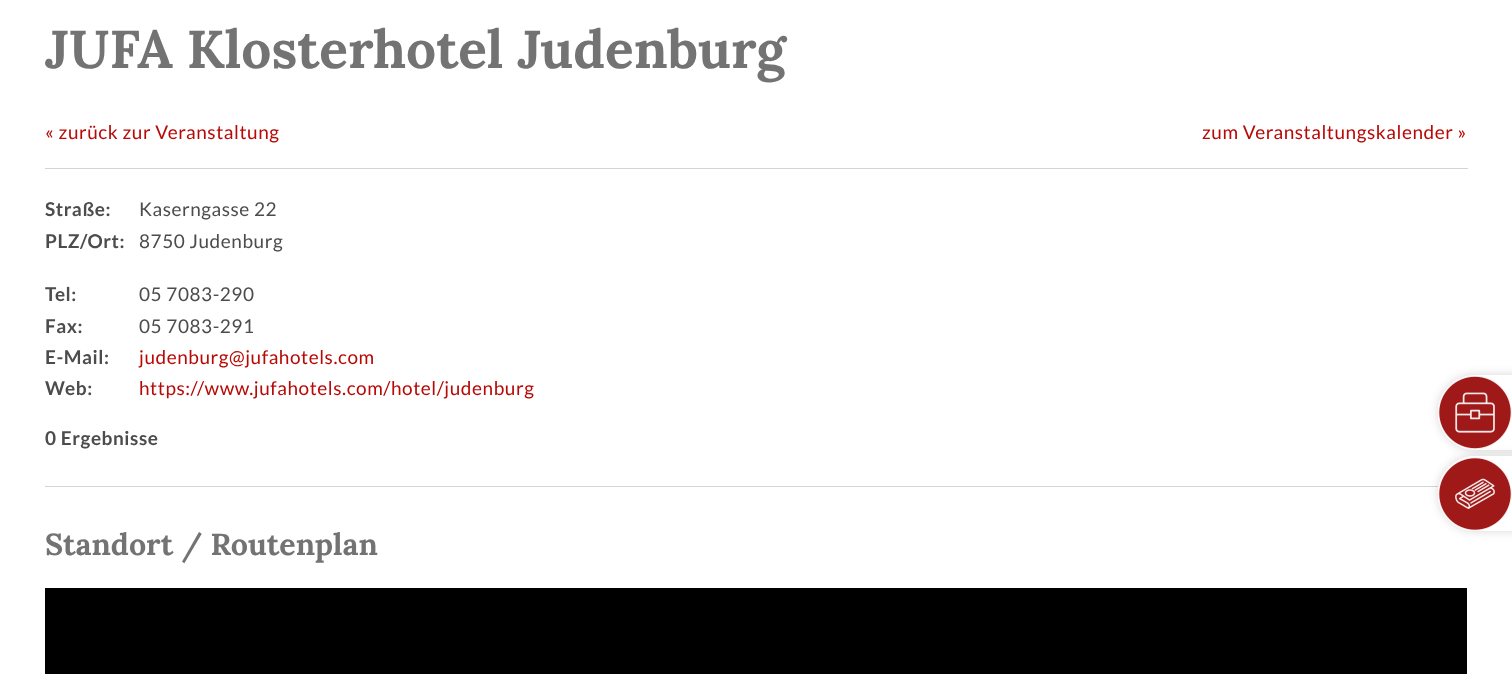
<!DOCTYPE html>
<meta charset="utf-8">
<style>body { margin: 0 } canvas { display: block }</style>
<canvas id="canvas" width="1512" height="674"></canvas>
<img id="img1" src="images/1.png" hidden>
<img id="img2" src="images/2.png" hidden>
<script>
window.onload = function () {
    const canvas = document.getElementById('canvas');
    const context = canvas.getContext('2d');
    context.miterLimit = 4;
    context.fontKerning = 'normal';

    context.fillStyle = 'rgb(255, 255, 255)';
    context.fillRect(0, 0, 1512, 674);
    context.fillStyle = 'rgb(212, 212, 212)';
    context.fillRect(45, 168, 1423, 1);
    context.fillRect(45, 486, 1423, 1);
    context.fillStyle = 'rgb(0, 0, 0)';
    context.fillRect(45, 588, 1422, 86);
    context.fillStyle = 'rgba(26, 26, 26, 0.18)';
    context.filter = 'blur(5px)';
    context.beginPath();
    context.roundRect(1438, 375, 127, 75, 37.5);
    context.fill();
    context.filter = 'none';
    context.fillStyle = 'rgb(255, 255, 255)';
    context.beginPath();
    context.moveTo(1475.5, 375);
    context.lineTo(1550, 375);
    context.lineTo(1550, 450);
    context.lineTo(1475.5, 450);
    context.bezierCurveTo(1455, 450, 1438, 433, 1438, 412.5);
    context.bezierCurveTo(1438, 392, 1455, 375, 1475.5, 375);
    context.closePath();
    context.fill();
    context.drawImage(document.getElementById('img1'), 1438, 376, 74, 73);
    context.save();
    context.beginPath();
    context.moveTo(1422, 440);
    context.lineTo(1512, 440);
    context.lineTo(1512, 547);
    context.lineTo(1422, 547);
    context.closePath();
    context.moveTo(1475.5, 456);
    context.lineTo(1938, 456);
    context.lineTo(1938, 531);
    context.lineTo(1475.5, 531);
    context.bezierCurveTo(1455, 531, 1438, 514, 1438, 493.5);
    context.bezierCurveTo(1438, 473, 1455, 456, 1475.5, 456);
    context.closePath();
    context.clip('evenodd');
    context.fillStyle = 'rgba(0, 0, 0, 0.16)';
    context.filter = 'blur(5px)';
    context.beginPath();
    context.roundRect(1438, 456, 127, 75, 37.5);
    context.fill();
    context.filter = 'none';
    context.restore();
    context.fillStyle = 'rgba(255, 255, 255, 0.9)';
    context.beginPath();
    context.moveTo(1475.5, 456);
    context.lineTo(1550, 456);
    context.lineTo(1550, 531);
    context.lineTo(1475.5, 531);
    context.bezierCurveTo(1455, 531, 1438, 514, 1438, 493.5);
    context.bezierCurveTo(1438, 473, 1455, 456, 1475.5, 456);
    context.closePath();
    context.fill();
    context.drawImage(document.getElementById('img2'), 1438, 457, 74, 74);
    context.font = 'bold 53.25px Lora';
    context.fillStyle = 'rgb(115, 115, 115)';
    context.fillText('JUFA Klosterhotel Judenburg', 45, 68);
    context.letterSpacing = '0.55px';
    context.font = '19px Lato';
    context.fillStyle = 'rgb(183, 9, 6)';
    context.fillText('« zurück zur Veranstaltung', 45, 139);
    context.fillText('zum Veranstaltungskalender »', 1202, 139);
    context.font = 'bold 19px Lato';
    context.fillStyle = 'rgb(76, 76, 76)';
    context.fillText('Straße:', 45, 216);
    context.font = '19px Lato';
    context.fillText('Kaserngasse 22', 139, 216);
    context.font = 'bold 19px Lato';
    context.fillText('PLZ/Ort:', 45, 248);
    context.font = '19px Lato';
    context.fillText('8750 Judenburg', 139, 248);
    context.font = 'bold 19px Lato';
    context.fillText('Tel:', 45, 301);
    context.font = '19px Lato';
    context.fillText('05 7083-290', 139, 301);
    context.font = 'bold 19px Lato';
    context.fillText('Fax:', 45, 333);
    context.font = '19px Lato';
    context.fillText('05 7083-291', 139, 333);
    context.font = 'bold 19px Lato';
    context.fillText('E-Mail:', 45, 364);
    context.font = '19px Lato';
    context.fillStyle = 'rgb(183, 9, 6)';
    context.fillText('judenburg@jufahotels.com', 139, 364);
    context.font = 'bold 19px Lato';
    context.fillStyle = 'rgb(76, 76, 76)';
    context.fillText('Web:', 45, 395);
    context.font = '19px Lato';
    context.fillStyle = 'rgb(183, 9, 6)';
    context.fillText('https://www.jufahotels.com/hotel/judenburg', 139, 395);
    context.font = 'bold 19px Lato';
    context.fillStyle = 'rgb(76, 76, 76)';
    context.fillText('0 Ergebnisse', 45, 445);
    context.letterSpacing = '0px';
    context.font = 'bold 30.4px Lora';
    context.fillStyle = 'rgb(115, 115, 115)';
    context.fillText('Standort / Routenplan', 45, 555);
};
</script>
